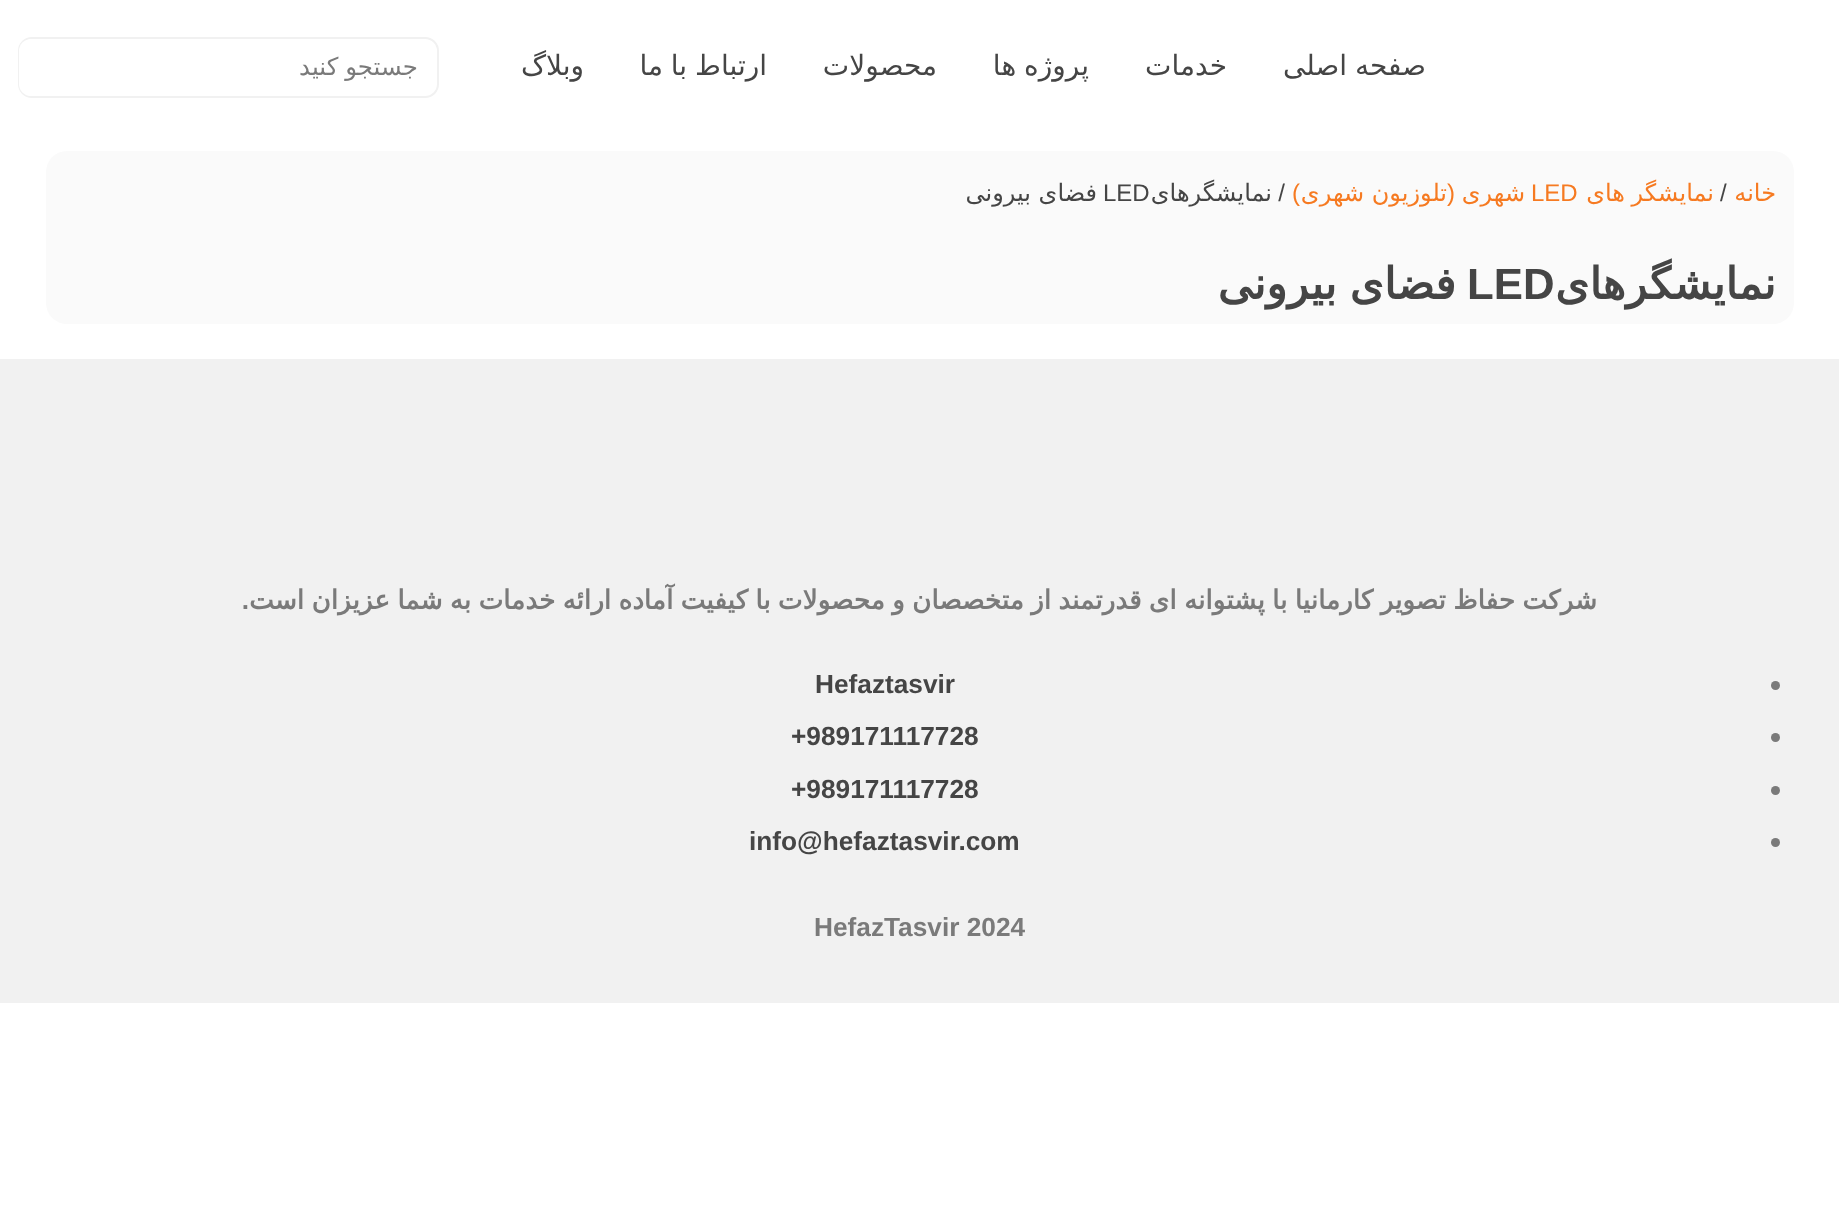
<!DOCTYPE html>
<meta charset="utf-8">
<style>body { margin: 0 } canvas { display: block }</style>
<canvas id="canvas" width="1839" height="1219"></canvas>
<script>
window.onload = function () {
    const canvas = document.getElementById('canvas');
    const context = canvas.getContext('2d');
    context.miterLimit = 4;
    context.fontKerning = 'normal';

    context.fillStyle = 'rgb(255, 255, 255)';
    context.fillRect(0, 0, 1839, 1219);
    context.beginPath();
    context.roundRect(19, 38, 419, 59, 13);
    context.strokeStyle = 'rgb(241, 241, 241)';
    context.lineWidth = 2;
    context.stroke();
    context.beginPath();
    context.roundRect(19, 39, 62, 57, [12, 0, 0, 12]);
    context.fill();
    context.fillStyle = 'rgb(250, 250, 250)';
    context.beginPath();
    context.roundRect(46, 151, 1748, 173, 21);
    context.fill();
    context.fillStyle = 'rgb(241, 241, 241)';
    context.fillRect(0, 359, 1839, 644);
    context.fillStyle = 'rgb(122, 122, 122)';
    context.beginPath();
    context.arc(1775.5, 685.5, 4.5, 0, 2 * Math.PI);
    context.fill();
    context.beginPath();
    context.arc(1775.5, 737.5, 4.5, 0, 2 * Math.PI);
    context.fill();
    context.beginPath();
    context.arc(1775.5, 790.5, 4.5, 0, 2 * Math.PI);
    context.fill();
    context.beginPath();
    context.arc(1775.5, 842.5, 4.5, 0, 2 * Math.PI);
    context.fill();
    context.wordSpacing = '-1px';
    context.direction = 'rtl';
    context.font = '28px DejaVu Sans';
    context.fillStyle = 'rgb(69, 69, 69)';
    context.fillText('صفحه اصلی', 1426, 75);
    context.wordSpacing = '0px';
    context.fillText('خدمات', 1227, 75);
    context.wordSpacing = '-1px';
    context.fillText('پروژه ها', 1089, 75);
    context.wordSpacing = '0px';
    context.fillText('محصولات', 937, 75);
    context.wordSpacing = '-1px';
    context.fillText('ارتباط با ما', 767, 75);
    context.wordSpacing = '0px';
    context.fillText('وبلاگ', 584, 75);
    context.wordSpacing = '-1px';
    context.font = '24.5px DejaVu Sans';
    context.fillStyle = 'rgb(122, 122, 122)';
    context.fillText('جستجو کنید', 418, 75);
    context.wordSpacing = '0px';
    context.font = '24px DejaVu Sans';
    context.fillStyle = 'rgb(246, 122, 33)';
    context.fillText('خانه', 1776, 201);
    context.direction = 'ltr';
    context.font = '24px Liberation Sans';
    context.fillStyle = 'rgb(69, 69, 69)';
    context.fillText('/', 1720, 201);
    context.wordSpacing = '-1px';
    context.direction = 'rtl';
    context.font = '24px DejaVu Sans';
    context.fillStyle = 'rgb(246, 122, 33)';
    context.fillText('نمایشگر های', 1714, 201);
    context.wordSpacing = '0px';
    context.direction = 'ltr';
    context.font = '24px Liberation Sans';
    context.fillText('LED', 1531, 201);
    context.direction = 'rtl';
    context.font = '24px DejaVu Sans';
    context.fillText('شهری', 1525, 201);
    context.font = '24px Liberation Sans';
    context.fillText('(', 1455, 201);
    context.font = '24px DejaVu Sans';
    context.fillText('تلوزیون شهری', 1447, 201);
    context.font = '24px Liberation Sans';
    context.fillText(')', 1300, 201);
    context.fillStyle = 'rgb(69, 69, 69)';
    context.fillText('/', 1285, 201);
    context.font = '24px DejaVu Sans';
    context.fillText('نمایشگرهای', 1272, 201);
    context.direction = 'ltr';
    context.font = '24px Liberation Sans';
    context.fillText('LED', 1103, 201);
    context.direction = 'rtl';
    context.font = '24px DejaVu Sans';
    context.fillText('فضای بیرونی', 1097, 201);
    context.font = 'bold 43.75px DejaVu Sans';
    context.fillText('نمایشگرهای', 1776, 299);
    context.direction = 'ltr';
    context.font = 'bold 43.75px Liberation Sans';
    context.fillText('LED', 1467, 299);
    context.wordSpacing = '-1px';
    context.direction = 'rtl';
    context.font = 'bold 43.75px DejaVu Sans';
    context.fillText('فضای بیرونی', 1456, 299);
    context.wordSpacing = '-1.05px';
    context.font = 'bold 26.25px DejaVu Sans';
    context.fillStyle = 'rgb(122, 122, 122)';
    context.fillText('شرکت حفاظ تصویر کارمانیا با پشتوانه ای قدرتمند از متخصصان و محصولات با کیفیت آماده ارائه خدمات به شما عزیزان است', 1597, 609);
    context.wordSpacing = '0px';
    context.font = 'bold 26.25px Liberation Sans';
    context.fillText('.', 249, 609);
    context.direction = 'ltr';
    context.fillStyle = 'rgb(69, 69, 69)';
    context.fillText('Hefaztasvir', 815, 693);
    context.fillText('+989171117728', 791, 745);
    context.fillText('+989171117728', 791, 798);
    context.fillText('info@hefaztasvir.com', 749, 850);
    context.fillStyle = 'rgb(122, 122, 122)';
    context.fillText('HefazTasvir 2024', 814, 936);
};
</script>
